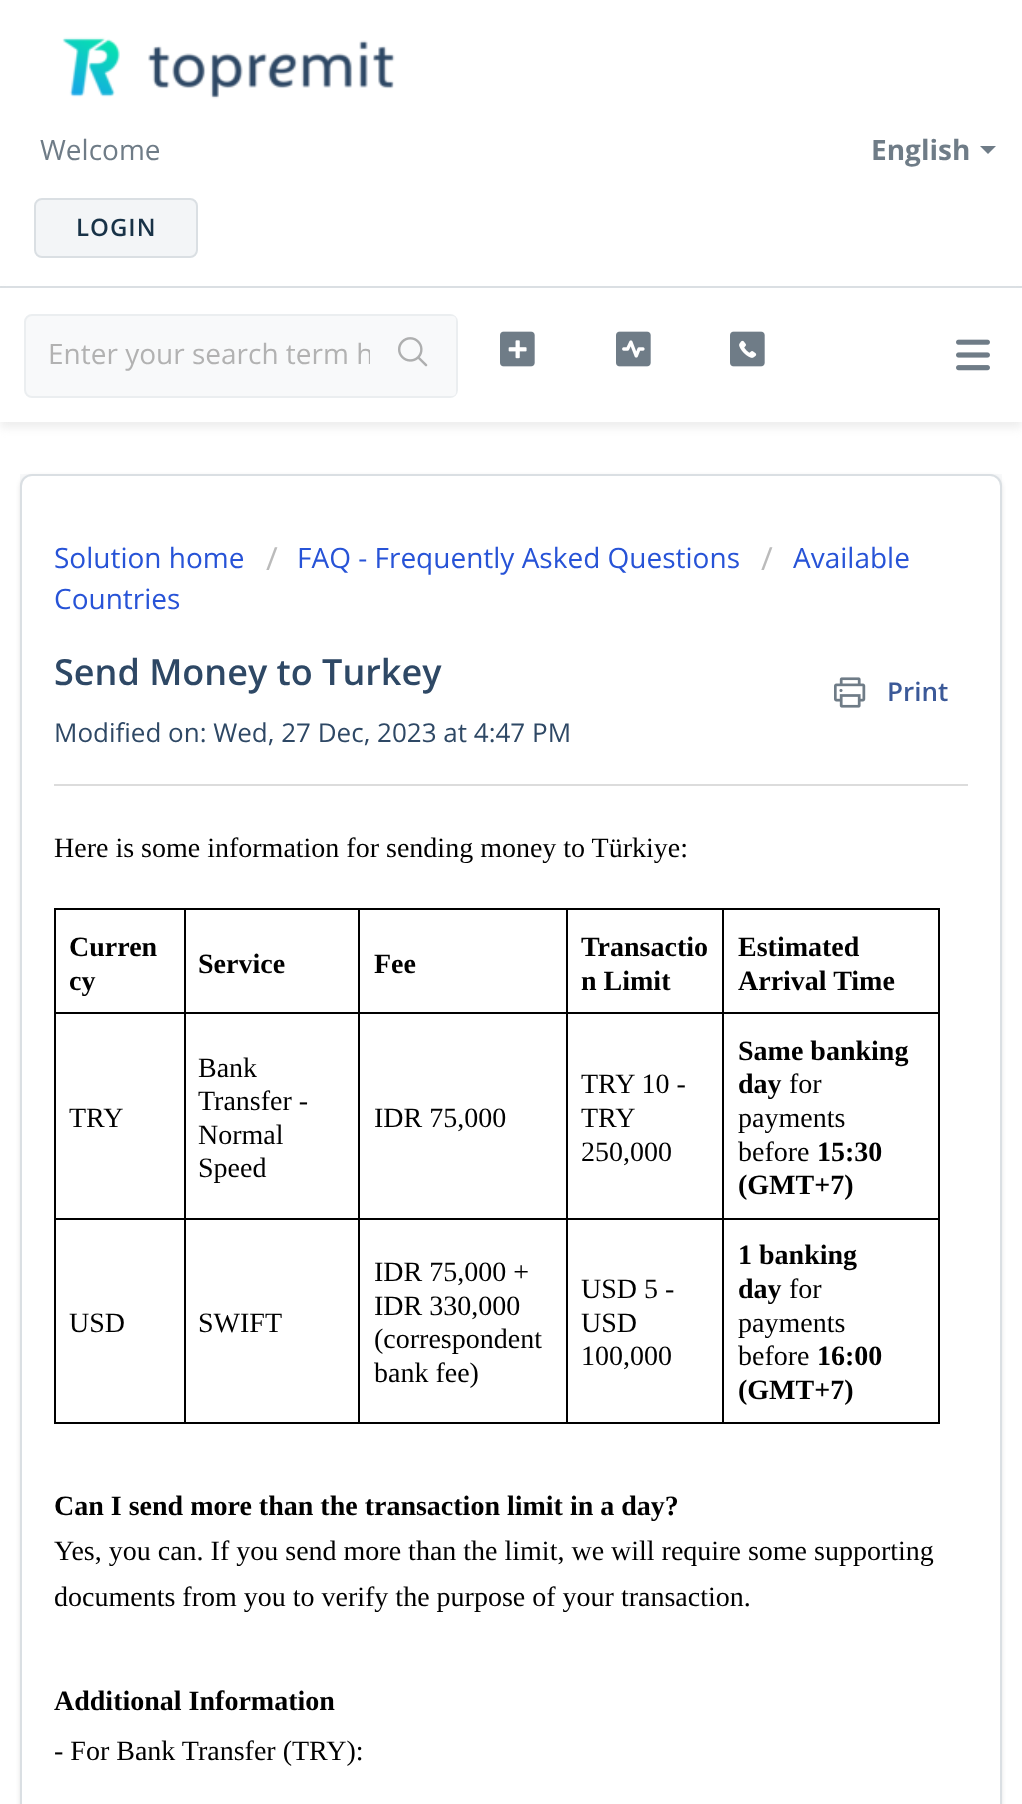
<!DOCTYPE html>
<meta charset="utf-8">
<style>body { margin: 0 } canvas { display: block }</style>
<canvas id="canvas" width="1022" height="1804"></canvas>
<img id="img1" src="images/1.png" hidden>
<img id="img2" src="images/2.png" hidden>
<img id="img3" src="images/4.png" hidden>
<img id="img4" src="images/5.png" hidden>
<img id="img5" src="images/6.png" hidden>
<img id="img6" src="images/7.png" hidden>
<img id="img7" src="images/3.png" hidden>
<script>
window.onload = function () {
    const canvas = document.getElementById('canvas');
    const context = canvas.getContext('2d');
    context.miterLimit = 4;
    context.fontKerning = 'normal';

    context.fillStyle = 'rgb(255, 255, 255)';
    context.fillRect(0, 0, 1022, 1804);
    context.fillStyle = 'rgb(218, 223, 227)';
    context.fillRect(0, 286, 1022, 2);
    context.drawImage(document.getElementById('img1'), 62, 37, 333, 62);
    context.fillStyle = 'rgb(111, 124, 135)';
    context.beginPath();
    context.moveTo(980, 146);
    context.lineTo(996, 146);
    context.lineTo(988, 154);
    context.closePath();
    context.fill();
    context.fillStyle = 'rgb(243, 245, 247)';
    context.beginPath();
    context.roundRect(35, 199, 162, 58, 7);
    context.fill();
    context.strokeStyle = 'rgb(218, 223, 227)';
    context.lineWidth = 2;
    context.stroke();
    context.save();
    context.beginPath();
    context.moveTo(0, 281);
    context.lineTo(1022, 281);
    context.lineTo(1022, 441);
    context.lineTo(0, 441);
    context.closePath();
    context.moveTo(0, 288);
    context.lineTo(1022, 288);
    context.lineTo(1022, 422);
    context.lineTo(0, 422);
    context.closePath();
    context.clip('evenodd');
    context.fillStyle = 'rgb(238, 238, 238)';
    context.filter = 'blur(4px)';
    context.beginPath();
    context.rect(0, 294, 1022, 134);
    context.fill();
    context.filter = 'none';
    context.restore();
    context.drawImage(document.getElementById('img2'), 956, 339, 34, 32);
    context.fillStyle = 'rgb(248, 249, 250)';
    context.beginPath();
    context.roundRect(25, 315, 432, 82, 7);
    context.fill();
    context.strokeStyle = 'rgb(235, 238, 240)';
    context.stroke();
    context.drawImage(document.getElementById('img3'), 500, 331, 35, 36);
    context.drawImage(document.getElementById('img4'), 616, 331, 35, 36);
    context.drawImage(document.getElementById('img5'), 730, 331, 35, 36);
    context.fillRect(20, 474, 982, 12);
    context.fillStyle = 'rgba(63, 63, 68, 0.15)';
    context.filter = 'blur(2px)';
    context.beginPath();
    context.roundRect(20, 476, 982, 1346, 12);
    context.fill();
    context.filter = 'none';
    context.fillStyle = 'rgb(255, 255, 255)';
    context.beginPath();
    context.roundRect(21, 475, 980, 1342, 11);
    context.fill();
    context.strokeStyle = 'rgb(218, 223, 227)';
    context.stroke();
    context.drawImage(document.getElementById('img6'), 834, 677, 32, 31);
    context.fillStyle = 'rgb(220, 220, 220)';
    context.fillRect(54, 784, 914, 2);
    context.fillStyle = 'rgb(0, 0, 0)';
    context.fillRect(722, 908, 218, 2);
    context.fillRect(722, 1012, 218, 2);
    context.fillRect(722, 1218, 218, 2);
    context.fillRect(938, 1218, 2, 206);
    context.fillRect(722, 1422, 218, 2);
    context.fillRect(722, 1218, 2, 206);
    context.fillRect(566, 1218, 158, 2);
    context.fillRect(722, 1012, 2, 208);
    context.fillRect(566, 1012, 158, 2);
    context.fillRect(722, 908, 2, 106);
    context.fillRect(566, 908, 158, 2);
    context.fillRect(566, 1422, 158, 2);
    context.fillRect(566, 1218, 2, 206);
    context.fillRect(358, 1218, 210, 2);
    context.fillRect(566, 1012, 2, 208);
    context.fillRect(358, 1012, 210, 2);
    context.fillRect(566, 908, 2, 106);
    context.fillRect(358, 908, 210, 2);
    context.fillRect(358, 1422, 210, 2);
    context.fillRect(358, 1218, 2, 206);
    context.fillRect(184, 1218, 176, 2);
    context.fillRect(358, 1012, 2, 208);
    context.fillRect(184, 1012, 176, 2);
    context.fillRect(358, 908, 2, 106);
    context.fillRect(184, 908, 176, 2);
    context.fillRect(184, 1422, 176, 2);
    context.fillRect(184, 1218, 2, 206);
    context.fillRect(54, 1218, 132, 2);
    context.fillRect(184, 1012, 2, 208);
    context.fillRect(54, 1012, 132, 2);
    context.fillRect(184, 908, 2, 106);
    context.fillRect(54, 908, 132, 2);
    context.fillRect(54, 1422, 132, 2);
    context.fillRect(54, 1218, 2, 206);
    context.fillRect(54, 1012, 2, 208);
    context.fillRect(54, 908, 2, 106);
    context.fillRect(938, 1012, 2, 208);
    context.fillRect(938, 908, 2, 106);
    context.font = '28px Open Sans';
    context.fillStyle = 'rgb(111, 124, 135)';
    context.fillText('Welcome', 40, 160);
    context.font = 'bold 28px Open Sans';
    context.fillText('English', 871, 160);
    context.letterSpacing = '1px';
    context.font = '600 24px Open Sans';
    context.fillStyle = 'rgb(24, 50, 71)';
    context.fillText('LOGIN', 76, 236);
    context.letterSpacing = '0px';
    context.font = '28px Open Sans';
    context.fillStyle = 'rgb(178, 178, 178)';
    context.fillText('Enter your search term h', 48, 364);
    context.fillStyle = 'rgb(248, 249, 250)';
    context.beginPath();
    context.roundRect(370, 316, 86, 80, 4);
    context.fill();
    context.drawImage(document.getElementById('img7'), 398, 337, 30, 30);
    context.fillStyle = 'rgb(39, 83, 215)';
    context.fillText('Solution home', 54, 568);
    context.font = '32px Open Sans';
    context.fillStyle = 'rgb(187, 187, 187)';
    context.fillText('/', 266, 570);
    context.font = '28px Open Sans';
    context.fillStyle = 'rgb(39, 83, 215)';
    context.fillText('FAQ - Frequently Asked Questions', 297, 568);
    context.font = '32px Open Sans';
    context.fillStyle = 'rgb(187, 187, 187)';
    context.fillText('/', 761, 570);
    context.font = '28px Open Sans';
    context.fillStyle = 'rgb(39, 83, 215)';
    context.fillText('Available', 793, 568);
    context.fillText('Countries', 54, 609);
    context.font = '600 36px Open Sans';
    context.fillStyle = 'rgb(46, 72, 101)';
    context.fillText('Send Money to Turkey', 54, 685);
    context.font = '600 26px Open Sans';
    context.fillStyle = 'rgb(59, 89, 152)';
    context.fillText('Print', 887, 701);
    context.font = '26px Open Sans';
    context.fillStyle = 'rgb(46, 72, 101)';
    context.fillText('Modified on: Wed, 27 Dec, 2023 at 4:47 PM', 54, 742);
    context.font = '28px Liberation Serif';
    context.fillStyle = 'rgb(0, 0, 0)';
    context.fillText('Here is some information for sending money to Türkiye:', 54, 857);
    context.font = 'bold 28px Liberation Serif';
    context.fillText('Curren', 69, 956);
    context.fillText('cy', 69, 990);
    context.fillText('Service', 198, 973);
    context.fillText('Fee', 374, 973);
    context.fillText('Transactio', 581, 956);
    context.fillText('n Limit', 581, 990);
    context.fillText('Estimated', 738, 956);
    context.fillText('Arrival Time', 738, 990);
    context.font = '28px Liberation Serif';
    context.fillText('TRY', 69, 1127);
    context.fillText('Bank', 198, 1077);
    context.fillText('Transfer -', 198, 1110);
    context.fillText('Normal', 198, 1144);
    context.fillText('Speed', 198, 1177);
    context.fillText('IDR 75,000', 374, 1127);
    context.fillText('TRY 10 -', 581, 1093);
    context.fillText('TRY', 581, 1127);
    context.fillText('250,000', 581, 1161);
    context.font = 'bold 28px Liberation Serif';
    context.fillText('Same banking', 738, 1060);
    context.fillText('day', 738, 1093);
    context.font = '28px Liberation Serif';
    context.fillText('for', 789, 1093);
    context.fillText('payments', 738, 1127);
    context.fillText('before', 738, 1161);
    context.font = 'bold 28px Liberation Serif';
    context.fillText('15:30', 817, 1161);
    context.fillText('(GMT+7)', 738, 1194);
    context.font = '28px Liberation Serif';
    context.fillText('USD', 69, 1332);
    context.fillText('SWIFT', 198, 1332);
    context.fillText('IDR 75,000 +', 374, 1281);
    context.fillText('IDR 330,000', 374, 1315);
    context.fillText('(correspondent', 374, 1348);
    context.fillText('bank fee)', 374, 1382);
    context.fillText('USD 5 -', 581, 1298);
    context.fillText('USD', 581, 1332);
    context.fillText('100,000', 581, 1365);
    context.font = 'bold 28px Liberation Serif';
    context.fillText('1 banking', 738, 1264);
    context.fillText('day', 738, 1298);
    context.font = '28px Liberation Serif';
    context.fillText('for', 789, 1298);
    context.fillText('payments', 738, 1332);
    context.fillText('before', 738, 1365);
    context.font = 'bold 28px Liberation Serif';
    context.fillText('16:00', 817, 1365);
    context.fillText('(GMT+7)', 738, 1399);
    context.fillText('Can I send more than the transaction limit in a day?', 54, 1515);
    context.font = '28px Liberation Serif';
    context.fillText('Yes, you can. If you send more than the limit, we will require some supporting', 54, 1560);
    context.fillText('documents from you to verify the purpose of your transaction.', 54, 1606);
    context.font = 'bold 28px Liberation Serif';
    context.fillText('Additional Information', 54, 1710);
    context.font = '28px Liberation Serif';
    context.fillText('- For Bank Transfer (TRY):', 54, 1760);
};
</script>
